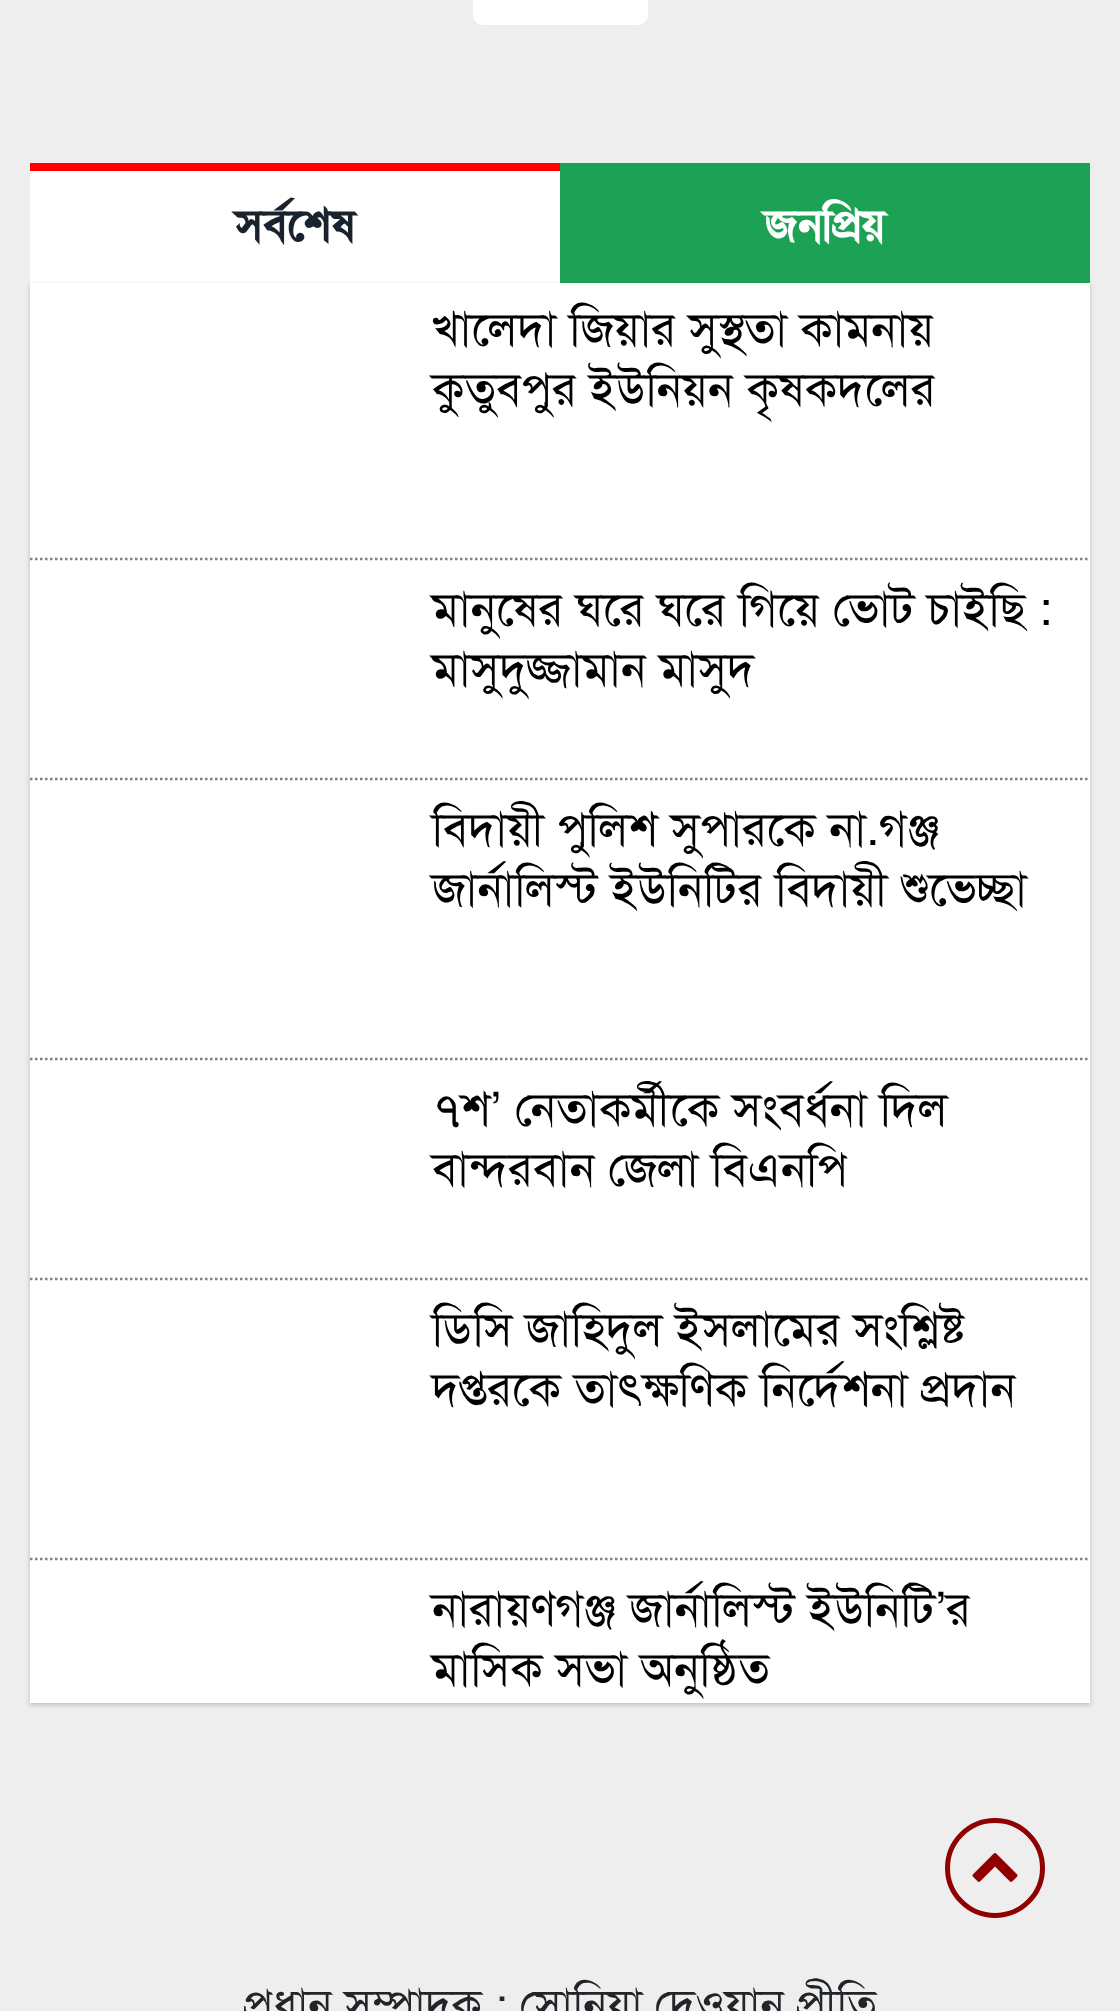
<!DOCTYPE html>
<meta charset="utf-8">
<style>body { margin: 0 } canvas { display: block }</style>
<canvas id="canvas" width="1120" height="2011"></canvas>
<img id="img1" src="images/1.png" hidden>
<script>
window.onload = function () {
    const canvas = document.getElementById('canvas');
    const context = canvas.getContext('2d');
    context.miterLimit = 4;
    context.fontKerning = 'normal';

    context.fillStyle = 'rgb(238, 238, 238)';
    context.fillRect(0, 0, 1120, 2011);
    context.fillStyle = 'rgb(255, 255, 255)';
    context.beginPath();
    context.roundRect(473, -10, 175, 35, 10);
    context.fill();
    context.fillRect(30, 171, 530, 112);
    context.fillStyle = 'rgb(255, 0, 0)';
    context.fillRect(30, 163, 530, 8);
    context.fillStyle = 'rgb(29, 162, 85)';
    context.fillRect(560, 163, 530, 120);
    context.fillStyle = 'rgba(0, 0, 0, 0.2)';
    context.filter = 'blur(2.5px)';
    context.beginPath();
    context.rect(30, 285, 1060, 1420);
    context.fill();
    context.filter = 'none';
    context.fillStyle = 'rgb(255, 255, 255)';
    context.fillRect(30, 283, 1060, 1420);
    context.beginPath();
    context.moveTo(30, 559);
    context.lineTo(1090, 559);
    context.strokeStyle = 'rgb(128, 128, 128)';
    context.lineWidth = 2.5;
    context.setLineDash([2.5, 2.5]);
    context.stroke();
    context.beginPath();
    context.moveTo(30, 779);
    context.lineTo(1090, 779);
    context.stroke();
    context.beginPath();
    context.moveTo(30, 1059);
    context.lineTo(1090, 1059);
    context.stroke();
    context.beginPath();
    context.moveTo(30, 1279);
    context.lineTo(1090, 1279);
    context.stroke();
    context.beginPath();
    context.moveTo(30, 1559);
    context.lineTo(1090, 1559);
    context.stroke();
    context.beginPath();
    context.arc(995, 1868, 47.5, 0, 2 * Math.PI);
    context.strokeStyle = 'rgb(145, 0, 0)';
    context.lineWidth = 5;
    context.setLineDash([]);
    context.stroke();
    context.drawImage(document.getElementById('img1'), 972, 1853, 46, 29);
    context.font = 'bold 45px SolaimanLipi';
    context.fillStyle = 'rgb(25, 35, 45)';
    context.fillText('সর্বশেষ', 235, 240);
    context.fillStyle = 'rgb(255, 255, 255)';
    context.fillText('জনপ্রিয়', 765, 240);
    context.font = '47.5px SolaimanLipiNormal';
    context.fillStyle = 'rgb(0, 0, 0)';
    context.fillText('খালেদা জিয়ার সুস্থতা কামনায়', 432, 345);
    context.fillText('কুতুবপুর ইউনিয়ন কৃষকদলের', 432, 405);
    context.fillText('মানুষের ঘরে ঘরে গিয়ে ভোট চাইছি :', 432, 625);
    context.fillText('মাসুদুজ্জামান মাসুদ', 432, 685);
    context.fillText('বিদায়ী পুলিশ সুপারকে না.গঞ্জ', 432, 845);
    context.fillText('জার্নালিস্ট ইউনিটির বিদায়ী শুভেচ্ছা', 432, 905);
    context.fillText('৭শ', 432, 1125);
    context.font = '47.5px SolaimanLipi';
    context.fillText('’', 490, 1125);
    context.font = '47.5px SolaimanLipiNormal';
    context.fillText('নেতাকর্মীকে সংবর্ধনা দিল', 515, 1125);
    context.fillText('বান্দরবান জেলা বিএনপি', 432, 1185);
    context.fillText('ডিসি জাহিদুল ইসলামের সংশ্লিষ্ট', 432, 1345);
    context.fillText('দপ্তরকে তাৎক্ষণিক নির্দেশনা প্রদান', 432, 1405);
    context.fillText('নারায়ণগঞ্জ জার্নালিস্ট ইউনিটি', 432, 1625);
    context.font = '47.5px SolaimanLipi';
    context.fillText('’', 935, 1625);
    context.font = '47.5px SolaimanLipiNormal';
    context.fillText('র', 946, 1625);
    context.fillText('মাসিক সভা অনুষ্ঠিত', 432, 1685);
    context.font = '45px SolaimanLipiNormal';
    context.fillStyle = 'rgb(33, 37, 41)';
    context.fillText('প্রধান সম্পাদক : সোনিয়া দেওয়ান প্রীতি', 244, 2020);
};
</script>
